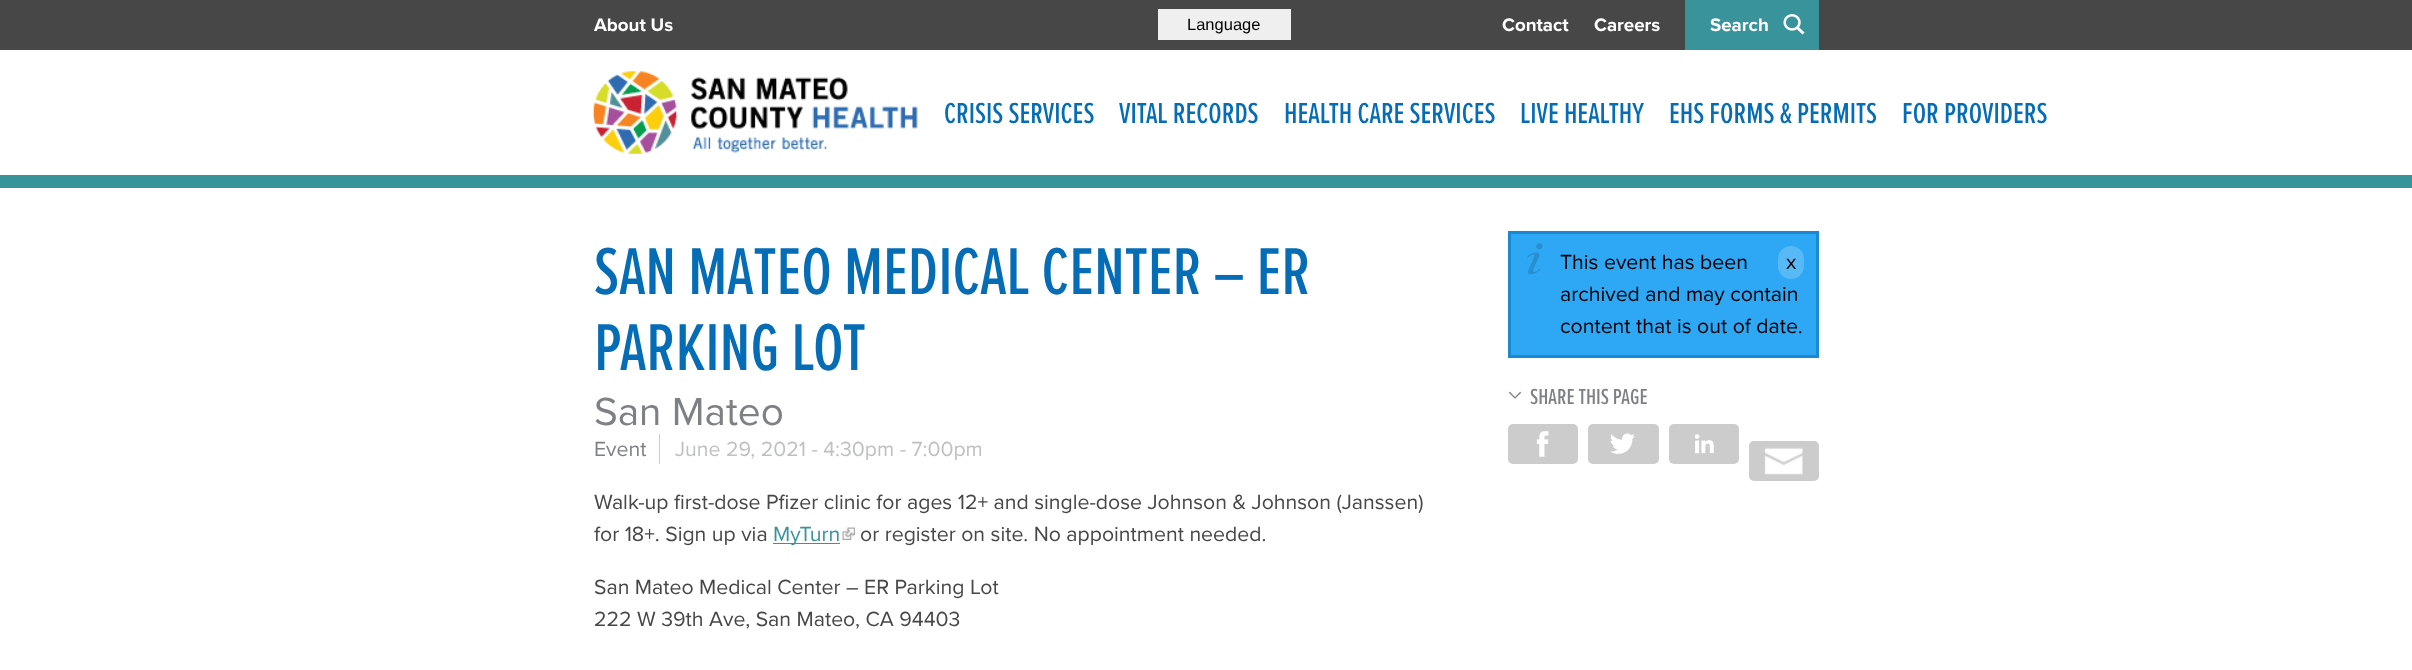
<!DOCTYPE html>
<meta charset="utf-8">
<style>body { margin: 0 } canvas { display: block }</style>
<canvas id="canvas" width="2412" height="670"></canvas>
<img id="img1" src="images/1.png" hidden>
<img id="img2" src="images/2.png" hidden>
<img id="img3" src="images/3.png" hidden>
<img id="img4" src="images/4.png" hidden>
<img id="img5" src="images/5.png" hidden>
<img id="img6" src="images/6.png" hidden>
<img id="img7" src="images/7.png" hidden>
<img id="img8" src="images/8.png" hidden>
<img id="img9" src="images/9.png" hidden>
<script>
window.onload = function () {
    const canvas = document.getElementById('canvas');
    const context = canvas.getContext('2d');
    context.miterLimit = 4;
    context.fontKerning = 'normal';

    context.fillStyle = 'rgb(255, 255, 255)';
    context.fillRect(0, 0, 2412, 670);
    context.fillStyle = 'rgb(71, 71, 71)';
    context.fillRect(0, 0, 2412, 50);
    context.fillStyle = 'rgb(56, 147, 155)';
    context.fillRect(0, 175, 2412, 13);
    context.fillStyle = 'rgb(239, 239, 239)';
    context.fillRect(1158, 9, 133, 31);
    context.fillStyle = 'rgb(56, 147, 155)';
    context.fillRect(1685, 0, 134, 50);
    context.drawImage(document.getElementById('img1'), 1783, 14, 22, 21);
    context.drawImage(document.getElementById('img2'), 592, 71, 326, 83);
    context.fillStyle = 'rgb(204, 204, 204)';
    context.fillRect(659, 434, 1, 30);
    context.fillStyle = 'rgb(56, 147, 155)';
    context.fillRect(773, 543, 67, 1);
    context.drawImage(document.getElementById('img3'), 842, 527, 13, 13);
    context.fillStyle = 'rgb(46, 168, 245)';
    context.fillRect(1511, 234, 305, 121);
    context.drawImage(document.getElementById('img4'), 1527, 243, 16, 32);
    context.strokeStyle = 'rgb(26, 137, 207)';
    context.lineWidth = 3;
    context.strokeRect(1509.5, 232.5, 308, 124);
    context.fillStyle = 'rgb(88, 185, 247)';
    context.beginPath();
    context.roundRect(1778, 246, 26, 33, 13);
    context.fill();
    context.drawImage(document.getElementById('img5'), 1508, 391, 14, 8);
    context.fillStyle = 'rgb(204, 204, 204)';
    context.beginPath();
    context.roundRect(1508, 424, 70, 40, 5);
    context.fill();
    context.drawImage(document.getElementById('img6'), 1536, 431, 13, 26);
    context.beginPath();
    context.roundRect(1588, 424, 71, 40, 5);
    context.fill();
    context.drawImage(document.getElementById('img7'), 1610, 433, 25, 21);
    context.beginPath();
    context.roundRect(1669, 424, 70, 40, 5);
    context.fill();
    context.drawImage(document.getElementById('img8'), 1694, 434, 20, 20);
    context.beginPath();
    context.roundRect(1749, 441, 70, 40, 5);
    context.fill();
    context.drawImage(document.getElementById('img9'), 1764, 447, 39, 28);
    context.font = 'bold 18.75px Proxima Nova';
    context.fillStyle = 'rgb(255, 255, 255)';
    context.fillText('About Us', 594, 31);
    context.fillText('Contact', 1502, 31);
    context.fillText('Careers', 1594, 31);
    context.font = '16.5px Liberation Sans';
    context.fillStyle = 'rgb(0, 0, 0)';
    context.fillText('Language', 1187, 30);
    context.font = 'bold 18.75px Proxima Nova';
    context.fillStyle = 'rgb(255, 255, 255)';
    context.fillText('Search', 1710, 31);
    context.font = '500 30px Proxima Nova';
    context.fillStyle = 'rgb(5, 108, 182)';
    context.fillText('CRISIS SERVICES', 944, 123);
    context.fillText('VITAL RECORDS', 1119, 123);
    context.fillText('HEALTH CARE SERVICES', 1284, 123);
    context.fillText('LIVE HEALTHY', 1520, 123);
    context.fillText('EHS FORMS & PERMITS', 1669, 123);
    context.fillText('FOR PROVIDERS', 1902, 123);
    context.font = '500 68.75px Proxima Nova';
    context.fillText('SAN MATEO MEDICAL CENTER – ER', 594, 294);
    context.fillText('PARKING LOT', 594, 370);
    context.font = '40.5px Proxima Nova';
    context.fillStyle = 'rgb(126, 128, 131)';
    context.fillText('San Mateo', 594, 425);
    context.font = '21.25px Proxima Nova';
    context.fillText('Event', 594, 456);
    context.fillStyle = 'rgb(191, 192, 193)';
    context.fillText('June 29, 2021 - 4:30pm - 7:00pm', 675, 456);
    context.fillStyle = 'rgb(71, 71, 71)';
    context.fillText('Walk-up first-dose Pfizer clinic for ages 12+ and single-dose Johnson & Johnson (Janssen)', 594, 509);
    context.fillText('for 18+. Sign up via', 594, 541);
    context.fillStyle = 'rgb(56, 147, 155)';
    context.fillText('MyTurn', 773, 541);
    context.fillStyle = 'rgb(71, 71, 71)';
    context.fillText('or register on site. No appointment needed.', 860, 541);
    context.fillText('San Mateo Medical Center – ER Parking Lot', 594, 594);
    context.fillText('222 W 39th Ave, San Mateo, CA 94403', 594, 626);
    context.fillStyle = 'rgb(0, 0, 0)';
    context.fillText('This event has been', 1560, 269);
    context.fillText('x', 1786, 269);
    context.fillText('archived and may contain', 1560, 301);
    context.fillText('content that is out of date.', 1560, 333);
    context.font = '500 22.5px Proxima Nova';
    context.fillStyle = 'rgb(126, 128, 131)';
    context.fillText('SHARE THIS PAGE', 1530, 404);
};
</script>
